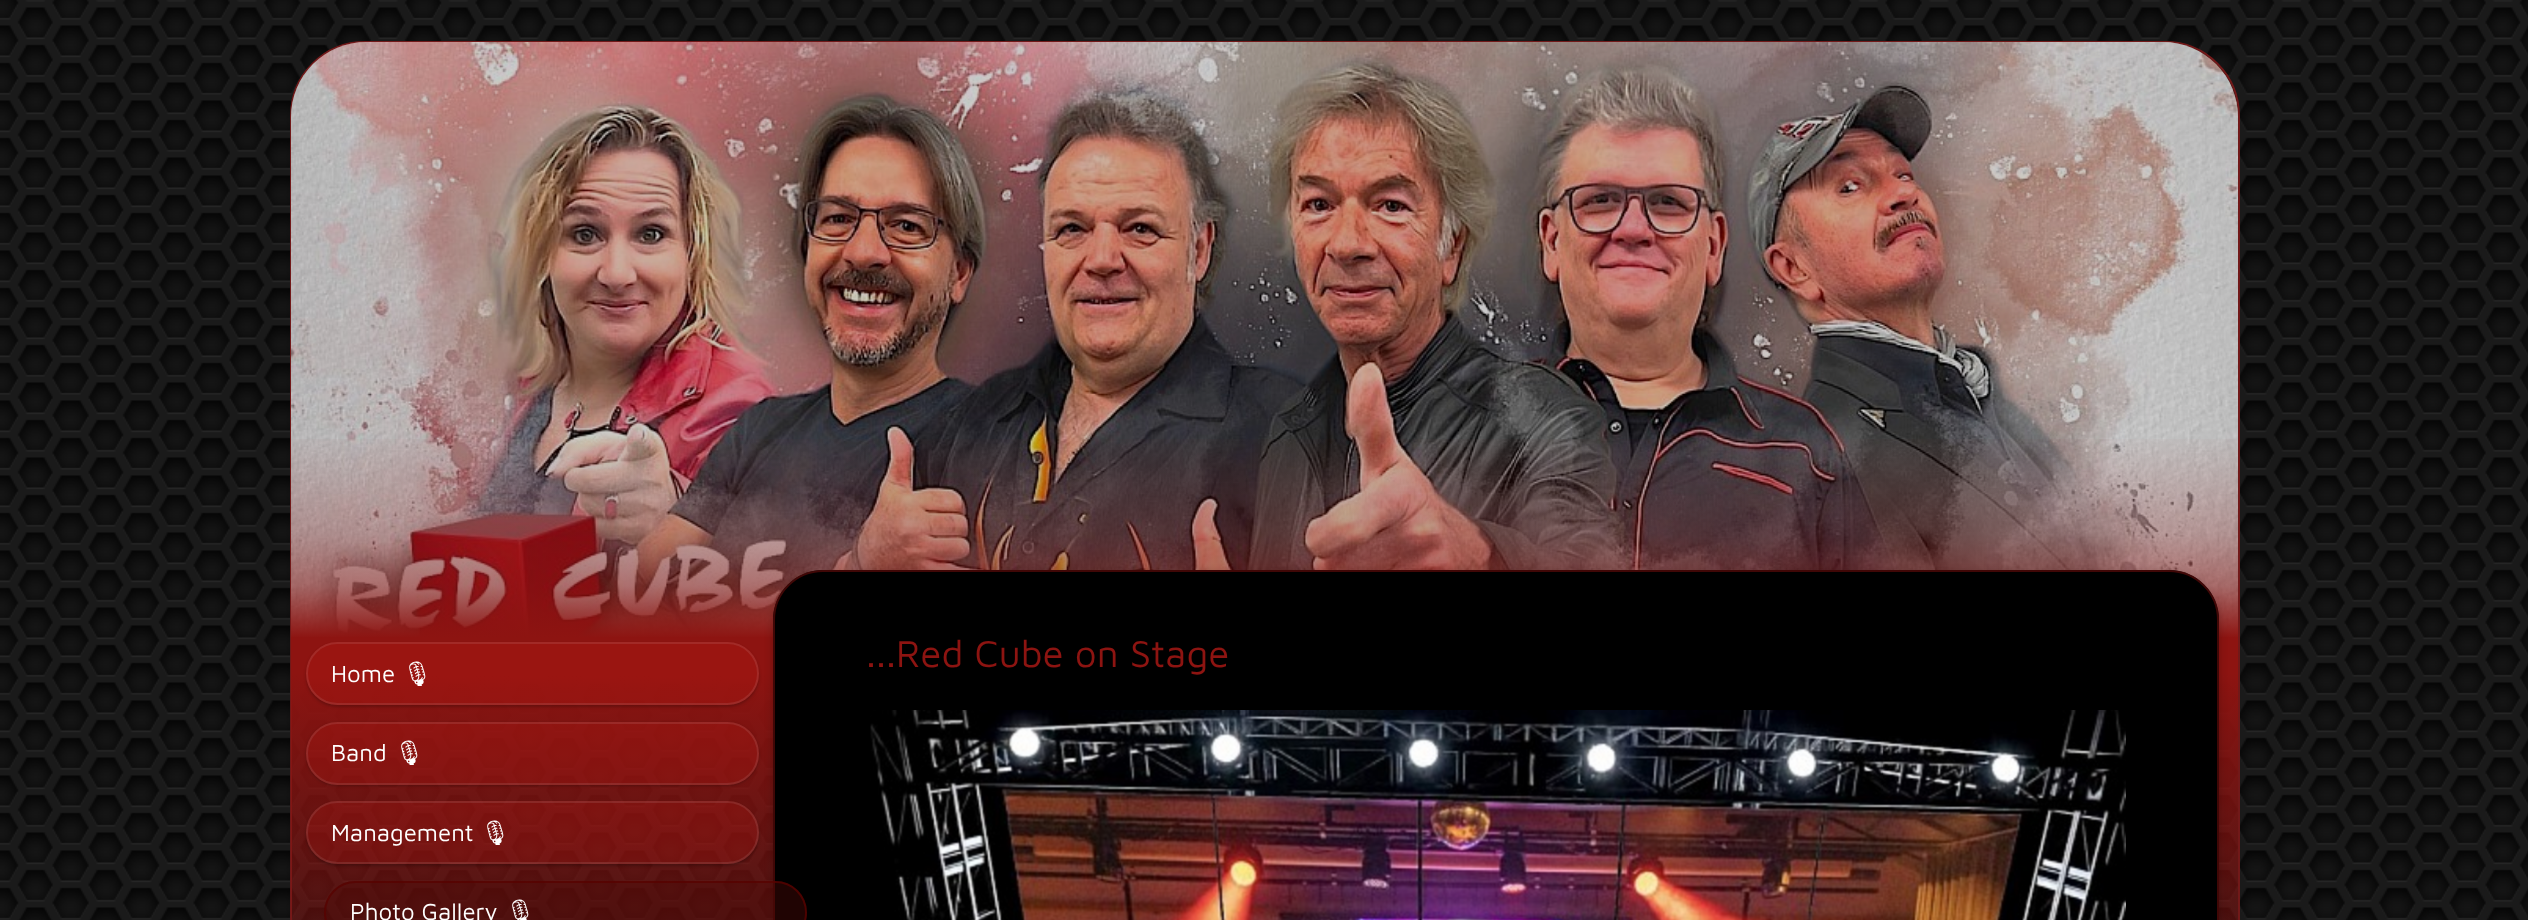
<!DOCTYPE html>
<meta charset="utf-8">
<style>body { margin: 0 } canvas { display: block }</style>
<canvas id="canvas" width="2528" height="920"></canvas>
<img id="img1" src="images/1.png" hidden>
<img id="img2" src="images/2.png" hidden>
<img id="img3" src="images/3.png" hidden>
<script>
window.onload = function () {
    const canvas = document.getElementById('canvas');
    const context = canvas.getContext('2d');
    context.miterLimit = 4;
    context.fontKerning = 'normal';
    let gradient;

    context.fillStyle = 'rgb(255, 255, 255)';
    context.fillRect(0, 0, 2528, 920);
    context.drawImage(document.getElementById('img1'), 0, 0, 2528, 920);
    context.fillStyle = 'rgba(141, 20, 17, 0.35)';
    context.beginPath();
    context.moveTo(365, 42);
    context.lineTo(2165, 42);
    context.bezierCurveTo(2206, 42, 2239, 75, 2239, 116);
    context.lineTo(2239, 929);
    context.bezierCurveTo(2239, 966, 2209, 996, 2172, 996);
    context.lineTo(358, 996);
    context.bezierCurveTo(321, 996, 291, 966, 291, 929);
    context.lineTo(291, 116);
    context.bezierCurveTo(291, 75, 324, 42, 365, 42);
    context.closePath();
    context.fill();
    context.strokeStyle = 'rgb(113, 25, 25)';
    context.lineWidth = 2;
    context.stroke();
    context.drawImage(document.getElementById('img2'), 291, 42, 1947, 595);
    context.fillStyle = 'rgba(0, 0, 0, 0.2)';
    context.beginPath();
    context.roundRect(291, 42, 1947, 603, [75, 75, 0, 0]);
    context.fill();
    gradient = context.createLinearGradient(1265, 430, 1265, 638);
    gradient.addColorStop(0, 'rgba(141, 20, 17, 0)');
    gradient.addColorStop(0.5, 'rgba(141, 20, 17, 0.25)');
    gradient.addColorStop(0.75, 'rgba(141, 20, 17, 0.5)');
    gradient.addColorStop(1, 'rgb(141, 20, 17)');
    context.fillStyle = gradient;
    context.fillRect(291, 439, 1947, 199);
    gradient = context.createLinearGradient(1265, 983, 1265, 638);
    gradient.addColorStop(0, 'rgba(141, 20, 17, 0)');
    gradient.addColorStop(0.9, 'rgb(141, 20, 17)');
    context.fillStyle = gradient;
    context.fillRect(291, 638, 1947, 282);
    context.fillStyle = 'rgba(0, 0, 0, 0.23)';
    context.filter = 'blur(4.5px)';
    context.beginPath();
    context.roundRect(773, 573, 1446, 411, 50);
    context.fill();
    context.filter = 'none';
    context.fillStyle = 'rgb(0, 0, 0)';
    context.beginPath();
    context.moveTo(823, 570);
    context.lineTo(2169, 570);
    context.bezierCurveTo(2196.5, 570, 2219, 592.5, 2219, 620);
    context.lineTo(2219, 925);
    context.bezierCurveTo(2219, 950, 2199, 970, 2174, 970);
    context.lineTo(818, 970);
    context.bezierCurveTo(793, 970, 773, 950, 773, 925);
    context.lineTo(773, 620);
    context.bezierCurveTo(773, 592.5, 795.5, 570, 823, 570);
    context.closePath();
    context.fill();
    context.beginPath();
    context.moveTo(823, 571);
    context.lineTo(2169, 571);
    context.bezierCurveTo(2196, 571, 2218, 593, 2218, 620);
    context.lineTo(2218, 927);
    context.bezierCurveTo(2218, 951.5, 2198.5, 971, 2174, 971);
    context.lineTo(818, 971);
    context.bezierCurveTo(793.5, 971, 774, 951.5, 774, 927);
    context.lineTo(774, 620);
    context.bezierCurveTo(774, 593, 796, 571, 823, 571);
    context.closePath();
    context.strokeStyle = 'rgba(80, 9, 7, 0.8)';
    context.stroke();
    context.drawImage(document.getElementById('img3'), 870, 710, 1256, 210);
    context.save();
    context.beginPath();
    context.moveTo(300, 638);
    context.lineTo(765, 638);
    context.lineTo(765, 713);
    context.lineTo(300, 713);
    context.closePath();
    context.moveTo(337.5, 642);
    context.lineTo(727.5, 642);
    context.bezierCurveTo(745, 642, 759, 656, 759, 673.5);
    context.bezierCurveTo(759, 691, 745, 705, 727.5, 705);
    context.lineTo(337.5, 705);
    context.bezierCurveTo(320, 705, 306, 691, 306, 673.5);
    context.bezierCurveTo(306, 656, 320, 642, 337.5, 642);
    context.closePath();
    context.clip('evenodd');
    context.fillStyle = 'rgba(0, 0, 0, 0.23)';
    context.filter = 'blur(1.5px)';
    context.beginPath();
    context.roundRect(306, 644, 453, 63, 31.5);
    context.fill();
    context.filter = 'none';
    context.restore();
    context.fillStyle = 'rgba(210, 23, 19, 0.2)';
    context.beginPath();
    context.roundRect(306, 642, 453, 63, 31.5);
    context.fill();
    context.beginPath();
    context.roundRect(307, 643, 451, 61, 30.5);
    context.strokeStyle = 'rgba(235, 235, 235, 0.1)';
    context.stroke();
    context.save();
    context.beginPath();
    context.moveTo(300, 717);
    context.lineTo(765, 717);
    context.lineTo(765, 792);
    context.lineTo(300, 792);
    context.closePath();
    context.moveTo(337.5, 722);
    context.lineTo(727.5, 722);
    context.bezierCurveTo(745, 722, 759, 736, 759, 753.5);
    context.bezierCurveTo(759, 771, 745, 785, 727.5, 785);
    context.lineTo(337.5, 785);
    context.bezierCurveTo(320, 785, 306, 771, 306, 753.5);
    context.bezierCurveTo(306, 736, 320, 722, 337.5, 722);
    context.closePath();
    context.clip('evenodd');
    context.fillStyle = 'rgba(0, 0, 0, 0.23)';
    context.filter = 'blur(1.5px)';
    context.beginPath();
    context.roundRect(306, 723, 453, 63, 31.5);
    context.fill();
    context.filter = 'none';
    context.restore();
    context.beginPath();
    context.roundRect(306, 722, 453, 63, 31.5);
    context.fill();
    context.beginPath();
    context.roundRect(307, 723, 451, 61, 30.5);
    context.stroke();
    context.save();
    context.beginPath();
    context.moveTo(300, 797);
    context.lineTo(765, 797);
    context.lineTo(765, 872);
    context.lineTo(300, 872);
    context.closePath();
    context.moveTo(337.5, 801);
    context.lineTo(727.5, 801);
    context.bezierCurveTo(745, 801, 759, 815, 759, 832.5);
    context.bezierCurveTo(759, 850, 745, 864, 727.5, 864);
    context.lineTo(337.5, 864);
    context.bezierCurveTo(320, 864, 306, 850, 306, 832.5);
    context.bezierCurveTo(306, 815, 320, 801, 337.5, 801);
    context.closePath();
    context.clip('evenodd');
    context.fillStyle = 'rgba(0, 0, 0, 0.23)';
    context.filter = 'blur(1.5px)';
    context.beginPath();
    context.roundRect(306, 803, 453, 63, 31.5);
    context.fill();
    context.filter = 'none';
    context.restore();
    context.beginPath();
    context.roundRect(306, 801, 453, 63, 31.5);
    context.fill();
    context.beginPath();
    context.roundRect(307, 802, 451, 61, 30.5);
    context.stroke();
    context.fillStyle = 'rgba(80, 9, 7, 0.4)';
    context.beginPath();
    context.roundRect(324, 881, 483, 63, 31.5);
    context.fill();
    context.beginPath();
    context.roundRect(325, 882, 481, 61, 30.5);
    context.strokeStyle = 'rgba(87, 2, 0, 0.8)';
    context.stroke();
    context.font = '38.5px Maven Pro';
    context.fillStyle = 'rgb(141, 20, 17)';
    context.fillText('...Red Cube on Stage', 866, 667);
    context.font = '24px Maven Pro';
    context.fillStyle = 'rgb(255, 255, 255)';
    context.fillText('Home', 331, 682);
    context.font = '24px Noto Emoji';
    context.fillText('🎙', 402, 682);
    context.font = '24px Maven Pro';
    context.fillText('Band', 331, 761);
    context.font = '24px Noto Emoji';
    context.fillText('🎙', 394, 761);
    context.font = '24px Maven Pro';
    context.fillText('Management', 331, 841);
    context.font = '24px Noto Emoji';
    context.fillText('🎙', 480, 841);
    context.font = '24px Maven Pro';
    context.fillText('Photo Gallery', 350, 920);
    context.font = '24px Noto Emoji';
    context.fillText('🎙', 505, 920);
};
</script>
